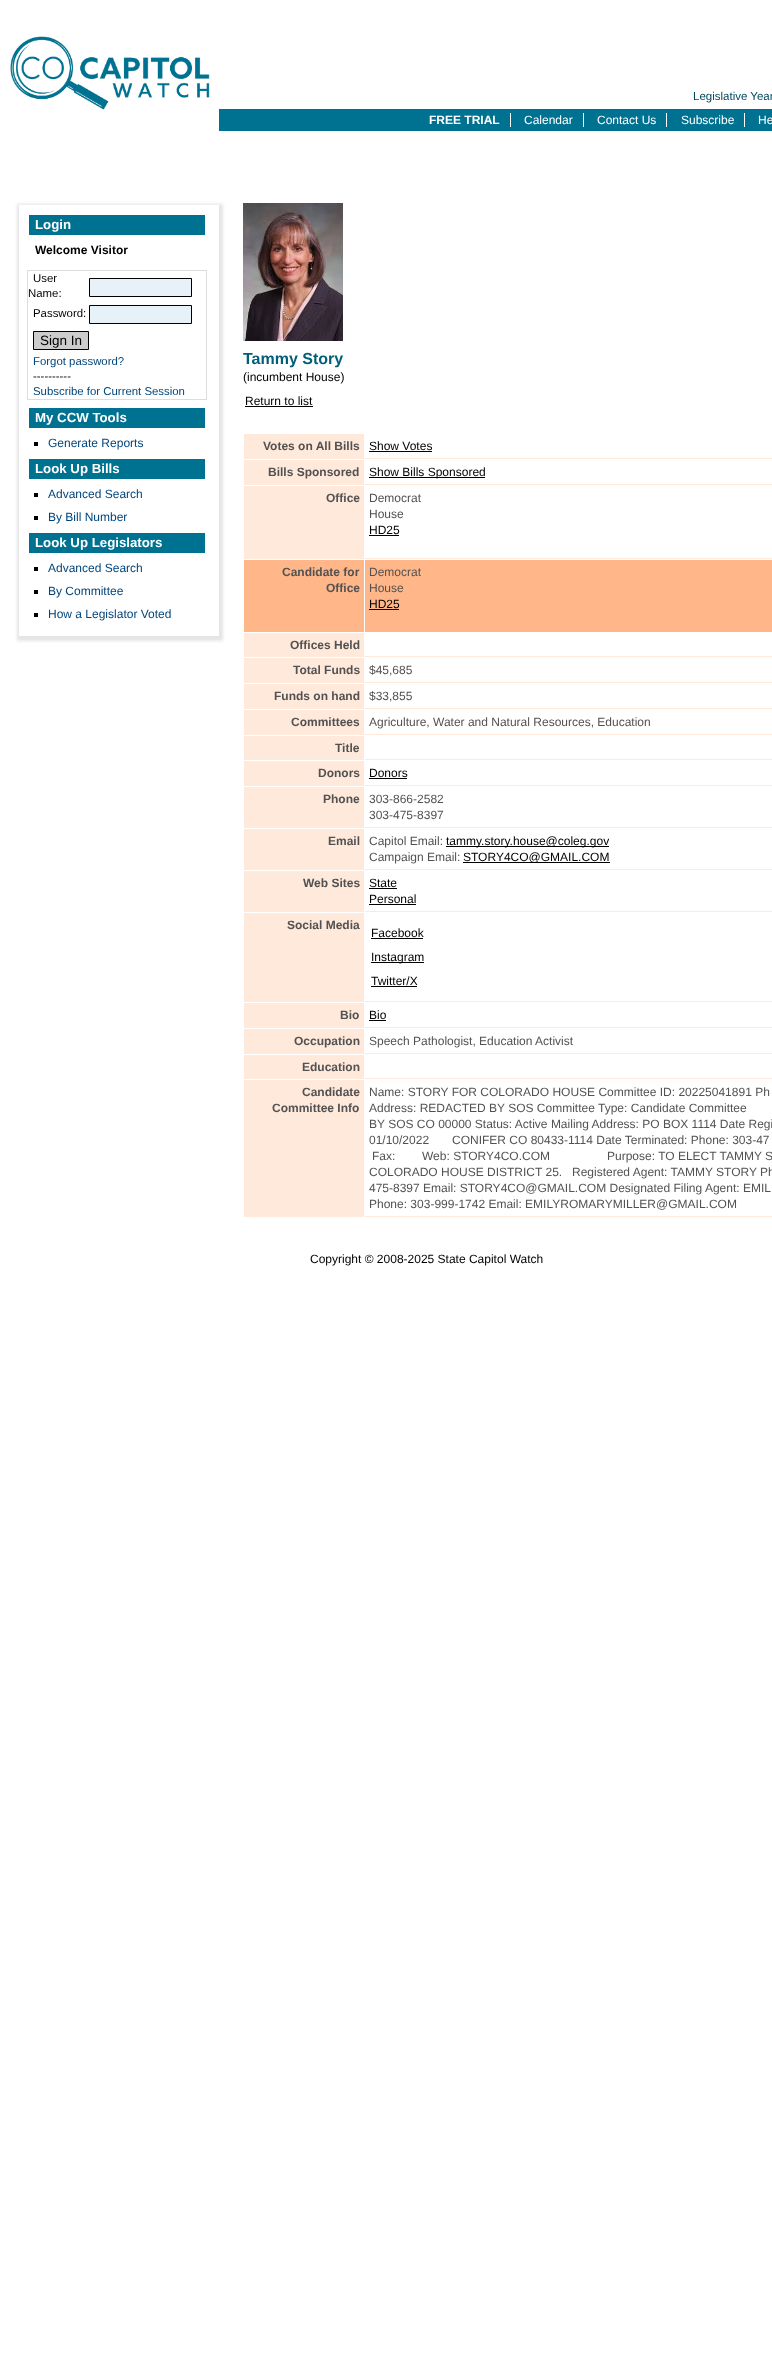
<!DOCTYPE html>
<meta charset="utf-8">
<style>body { margin: 0 } canvas { display: block }</style>
<canvas id="canvas" width="772" height="2369"></canvas>
<img id="img1" src="images/1.png" hidden>
<img id="img2" src="images/2.png" hidden>
<script>
window.onload = function () {
    const canvas = document.getElementById('canvas');
    const context = canvas.getContext('2d');
    context.miterLimit = 4;
    context.fontKerning = 'normal';

    context.fillStyle = 'rgb(255, 255, 255)';
    context.fillRect(0, 0, 772, 2369);
    context.drawImage(document.getElementById('img1'), 10, 36, 200, 74);
    context.save();
    context.beginPath();
    context.moveTo(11, 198);
    context.lineTo(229, 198);
    context.lineTo(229, 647);
    context.lineTo(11, 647);
    context.closePath();
    context.moveTo(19, 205);
    context.lineTo(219, 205);
    context.lineTo(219, 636);
    context.lineTo(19, 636);
    context.closePath();
    context.clip('evenodd');
    context.fillStyle = 'rgba(0, 0, 0, 0.1)';
    context.filter = 'blur(1.5px)';
    context.beginPath();
    context.rect(17, 204, 206, 437);
    context.fill();
    context.filter = 'none';
    context.restore();
    context.fillStyle = 'rgb(0, 114, 145)';
    context.fillRect(29, 215, 176, 20);
    context.strokeStyle = 'rgb(221, 221, 221)';
    context.strokeRect(27.5, 270.5, 179, 129);
    context.fillStyle = 'rgb(230, 241, 248)';
    context.beginPath();
    context.rect(89.5, 278.5, 102, 18);
    context.fill();
    context.strokeStyle = 'rgb(0, 0, 0)';
    context.stroke();
    context.beginPath();
    context.rect(89.5, 305.5, 102, 18);
    context.fill();
    context.stroke();
    context.fillStyle = 'rgb(204, 204, 204)';
    context.beginPath();
    context.rect(33.5, 331.5, 55, 18);
    context.fill();
    context.stroke();
    context.fillStyle = 'rgb(0, 114, 145)';
    context.fillRect(29, 408, 176, 20);
    context.fillStyle = 'rgb(0, 0, 0)';
    context.fillRect(34, 442, 4, 4);
    context.fillStyle = 'rgb(0, 114, 145)';
    context.fillRect(29, 459, 176, 20);
    context.fillStyle = 'rgb(0, 0, 0)';
    context.fillRect(34, 493, 4, 4);
    context.fillRect(34, 516, 4, 4);
    context.fillStyle = 'rgb(0, 114, 145)';
    context.fillRect(29, 533, 176, 20);
    context.fillStyle = 'rgb(0, 0, 0)';
    context.fillRect(34, 567, 4, 4);
    context.fillRect(34, 590, 4, 4);
    context.fillRect(34, 613, 4, 4);
    context.fillStyle = 'rgb(0, 114, 145)';
    context.fillRect(219, 109, 553, 22);
    context.fillStyle = 'rgb(255, 255, 255)';
    context.fillRect(510, 113, 1, 14);
    context.fillRect(583, 113, 1, 14);
    context.fillRect(666, 113, 1, 14);
    context.fillRect(744, 113, 1, 14);
    context.drawImage(document.getElementById('img2'), 243, 203, 100, 138);
    context.fillStyle = 'rgb(0, 0, 0)';
    context.fillRect(245, 406, 68, 1);
    context.fillStyle = 'rgb(255, 233, 219)';
    context.fillRect(244, 434, 120, 25);
    context.fillRect(365, 458, 407, 1);
    context.fillStyle = 'rgb(0, 0, 0)';
    context.fillRect(369, 451, 63, 1);
    context.fillStyle = 'rgb(255, 233, 219)';
    context.fillRect(244, 460, 120, 25);
    context.fillRect(365, 484, 407, 1);
    context.fillStyle = 'rgb(0, 0, 0)';
    context.fillRect(369, 477, 116, 1);
    context.fillStyle = 'rgb(255, 233, 219)';
    context.fillRect(244, 486, 120, 73);
    context.fillRect(365, 558, 407, 1);
    context.fillStyle = 'rgb(0, 0, 0)';
    context.fillRect(369, 535, 30, 1);
    context.fillStyle = 'rgb(255, 182, 136)';
    context.fillRect(244, 560, 120, 72);
    context.fillRect(365, 560, 407, 72);
    context.fillStyle = 'rgb(0, 0, 0)';
    context.fillRect(369, 609, 30, 1);
    context.fillStyle = 'rgb(255, 233, 219)';
    context.fillRect(244, 633, 120, 24);
    context.fillRect(365, 656, 407, 1);
    context.fillRect(244, 658, 120, 25);
    context.fillRect(365, 682, 407, 1);
    context.fillRect(244, 684, 120, 25);
    context.fillRect(365, 708, 407, 1);
    context.fillRect(244, 710, 120, 25);
    context.fillRect(365, 734, 407, 1);
    context.fillRect(244, 736, 120, 24);
    context.fillRect(365, 759, 407, 1);
    context.fillRect(244, 761, 120, 25);
    context.fillRect(365, 785, 407, 1);
    context.fillStyle = 'rgb(0, 0, 0)';
    context.fillRect(369, 778, 38, 1);
    context.fillStyle = 'rgb(255, 233, 219)';
    context.fillRect(244, 787, 120, 41);
    context.fillRect(365, 827, 407, 1);
    context.fillRect(244, 829, 120, 41);
    context.fillRect(365, 869, 407, 1);
    context.fillStyle = 'rgb(0, 0, 0)';
    context.fillRect(446, 846, 163, 1);
    context.fillRect(463, 862, 147, 1);
    context.fillStyle = 'rgb(255, 233, 219)';
    context.fillRect(244, 871, 120, 41);
    context.fillRect(365, 911, 407, 1);
    context.fillStyle = 'rgb(0, 0, 0)';
    context.fillRect(369, 888, 28, 1);
    context.fillRect(369, 904, 47, 1);
    context.fillStyle = 'rgb(255, 233, 219)';
    context.fillRect(244, 913, 120, 89);
    context.fillRect(365, 1001, 407, 1);
    context.fillStyle = 'rgb(0, 0, 0)';
    context.fillRect(371, 938, 52, 1);
    context.fillRect(371, 962, 53, 1);
    context.fillRect(371, 986, 46, 1);
    context.fillStyle = 'rgb(255, 233, 219)';
    context.fillRect(244, 1003, 120, 25);
    context.fillRect(365, 1027, 407, 1);
    context.fillStyle = 'rgb(0, 0, 0)';
    context.fillRect(369, 1020, 17, 1);
    context.fillStyle = 'rgb(255, 233, 219)';
    context.fillRect(244, 1029, 120, 25);
    context.fillRect(365, 1053, 407, 1);
    context.fillRect(244, 1055, 120, 24);
    context.fillRect(365, 1078, 407, 1);
    context.fillRect(244, 1080, 120, 137);
    context.fillRect(365, 1216, 407, 1);
    context.font = 'bold 13.25px Liberation Sans';
    context.fillStyle = 'rgb(255, 255, 255)';
    context.fillText('Login', 35, 229);
    context.font = 'bold 12px Liberation Sans';
    context.fillStyle = 'rgb(0, 0, 0)';
    context.fillText('Welcome Visitor', 35, 254);
    context.font = '11.4px Liberation Sans';
    context.fillText('User', 33, 282);
    context.fillText('Name:', 28, 297);
    context.fillText('Password:', 33, 317);
    context.font = '13.5px Liberation Sans';
    context.fillText('Sign In', 40, 345);
    context.font = '11.4px Liberation Sans';
    context.fillStyle = 'rgb(0, 69, 124)';
    context.fillText('Forgot password?', 33, 365);
    context.fillStyle = 'rgb(0, 0, 0)';
    context.fillText('----------', 33, 380);
    context.fillStyle = 'rgb(0, 69, 124)';
    context.fillText('Subscribe for Current Session', 33, 395);
    context.font = 'bold 13.25px Liberation Sans';
    context.fillStyle = 'rgb(255, 255, 255)';
    context.fillText('My CCW Tools', 35, 422);
    context.font = '12px Liberation Sans';
    context.fillStyle = 'rgb(0, 69, 124)';
    context.fillText('Generate Reports', 48, 447);
    context.font = 'bold 13.25px Liberation Sans';
    context.fillStyle = 'rgb(255, 255, 255)';
    context.fillText('Look Up Bills', 35, 473);
    context.font = '12px Liberation Sans';
    context.fillStyle = 'rgb(0, 69, 124)';
    context.fillText('Advanced Search', 48, 498);
    context.fillText('By Bill Number', 48, 521);
    context.font = 'bold 13.25px Liberation Sans';
    context.fillStyle = 'rgb(255, 255, 255)';
    context.fillText('Look Up Legislators', 35, 547);
    context.font = '12px Liberation Sans';
    context.fillStyle = 'rgb(0, 69, 124)';
    context.fillText('Advanced Search', 48, 572);
    context.fillText('By Committee', 48, 595);
    context.fillText('How a Legislator Voted', 48, 618);
    context.font = '11.5px Liberation Sans';
    context.fillStyle = 'rgb(0, 74, 95)';
    context.fillText('Legislative Year', 693, 100);
    context.font = 'bold 12px Liberation Sans';
    context.fillStyle = 'rgb(255, 255, 255)';
    context.fillText('FREE TRIAL', 429, 124);
    context.font = '12px Liberation Sans';
    context.fillText('Calendar', 524, 124);
    context.fillText('Contact Us', 597, 124);
    context.fillText('Subscribe', 681, 124);
    context.fillText('He', 758, 124);
    context.font = 'bold 16px Liberation Sans';
    context.fillStyle = 'rgb(0, 94, 120)';
    context.fillText('Tammy Story', 243, 364);
    context.font = '12px Liberation Sans';
    context.fillStyle = 'rgb(0, 0, 0)';
    context.fillText('(incumbent House)', 243, 381);
    context.fillText('Return to list', 245, 405);
    context.font = 'bold 12px Liberation Sans';
    context.fillStyle = 'rgb(82, 82, 82)';
    context.fillText('Votes on All Bills', 263, 450);
    context.font = '12px Liberation Sans';
    context.fillStyle = 'rgb(0, 0, 0)';
    context.fillText('Show Votes', 369, 450);
    context.font = 'bold 12px Liberation Sans';
    context.fillStyle = 'rgb(82, 82, 82)';
    context.fillText('Bills Sponsored', 268, 476);
    context.font = '12px Liberation Sans';
    context.fillStyle = 'rgb(0, 0, 0)';
    context.fillText('Show Bills Sponsored', 369, 476);
    context.font = 'bold 12px Liberation Sans';
    context.fillStyle = 'rgb(82, 82, 82)';
    context.fillText('Office', 326, 502);
    context.font = '12px Liberation Sans';
    context.fillText('Democrat', 369, 502);
    context.fillText('House', 369, 518);
    context.fillStyle = 'rgb(0, 0, 0)';
    context.fillText('HD25', 369, 534);
    context.font = 'bold 12px Liberation Sans';
    context.fillStyle = 'rgb(82, 82, 82)';
    context.fillText('Candidate for', 282, 576);
    context.fillText('Office', 326, 592);
    context.font = '12px Liberation Sans';
    context.fillText('Democrat', 369, 576);
    context.fillText('House', 369, 592);
    context.fillStyle = 'rgb(0, 0, 0)';
    context.fillText('HD25', 369, 608);
    context.font = 'bold 12px Liberation Sans';
    context.fillStyle = 'rgb(82, 82, 82)';
    context.fillText('Offices Held', 290, 649);
    context.fillText('Total Funds', 293, 674);
    context.font = '12px Liberation Sans';
    context.fillText('$45,685', 369, 674);
    context.font = 'bold 12px Liberation Sans';
    context.fillText('Funds on hand', 274, 700);
    context.font = '12px Liberation Sans';
    context.fillText('$33,855', 369, 700);
    context.font = 'bold 12px Liberation Sans';
    context.fillText('Committees', 291, 726);
    context.font = '12px Liberation Sans';
    context.fillText('Agriculture, Water and Natural Resources, Education', 369, 726);
    context.font = 'bold 12px Liberation Sans';
    context.fillText('Title', 335, 752);
    context.fillText('Donors', 318, 777);
    context.font = '12px Liberation Sans';
    context.fillStyle = 'rgb(0, 0, 0)';
    context.fillText('Donors', 369, 777);
    context.font = 'bold 12px Liberation Sans';
    context.fillStyle = 'rgb(82, 82, 82)';
    context.fillText('Phone', 323, 803);
    context.font = '12px Liberation Sans';
    context.fillText('303-866-2582', 369, 803);
    context.fillText('303-475-8397', 369, 819);
    context.font = 'bold 12px Liberation Sans';
    context.fillText('Email', 328, 845);
    context.font = '12px Liberation Sans';
    context.fillText('Capitol Email:', 369, 845);
    context.fillStyle = 'rgb(0, 0, 0)';
    context.fillText('tammy.story.house@coleg.gov', 446, 845);
    context.fillStyle = 'rgb(82, 82, 82)';
    context.fillText('Campaign Email:', 369, 861);
    context.fillStyle = 'rgb(0, 0, 0)';
    context.fillText('STORY4CO@GMAIL.COM', 463, 861);
    context.font = 'bold 12px Liberation Sans';
    context.fillStyle = 'rgb(82, 82, 82)';
    context.fillText('Web Sites', 303, 887);
    context.font = '12px Liberation Sans';
    context.fillStyle = 'rgb(0, 0, 0)';
    context.fillText('State', 369, 887);
    context.fillText('Personal', 369, 903);
    context.font = 'bold 12px Liberation Sans';
    context.fillStyle = 'rgb(82, 82, 82)';
    context.fillText('Social Media', 287, 929);
    context.font = '12px Liberation Sans';
    context.fillStyle = 'rgb(0, 0, 0)';
    context.fillText('Facebook', 371, 937);
    context.fillText('Instagram', 371, 961);
    context.fillText('Twitter/X', 371, 985);
    context.font = 'bold 12px Liberation Sans';
    context.fillStyle = 'rgb(82, 82, 82)';
    context.fillText('Bio', 340, 1019);
    context.font = '12px Liberation Sans';
    context.fillStyle = 'rgb(0, 0, 0)';
    context.fillText('Bio', 369, 1019);
    context.font = 'bold 12px Liberation Sans';
    context.fillStyle = 'rgb(82, 82, 82)';
    context.fillText('Occupation', 294, 1045);
    context.font = '12px Liberation Sans';
    context.fillText('Speech Pathologist, Education Activist', 369, 1045);
    context.font = 'bold 12px Liberation Sans';
    context.fillText('Education', 302, 1071);
    context.fillText('Candidate', 302, 1096);
    context.fillText('Committee Info', 272, 1112);
    context.font = '12px Liberation Sans';
    context.fillText('Name: STORY FOR COLORADO HOUSE Committee ID: 20225041891 Ph', 369, 1096);
    context.fillText('Address: REDACTED BY SOS Committee Type: Candidate Committee', 369, 1112);
    context.fillText('BY SOS CO 00000 Status: Active Mailing Address: PO BOX 1114 Date Regi', 369, 1128);
    context.fillText('01/10/2022', 369, 1144);
    context.fillText('CONIFER CO 80433-1114 Date Terminated: Phone: 303-47', 452, 1144);
    context.fillText('Fax:', 372, 1160);
    context.fillText('Web: STORY4CO.COM', 422, 1160);
    context.fillText('Purpose: TO ELECT TAMMY S', 607, 1160);
    context.fillText('COLORADO HOUSE DISTRICT 25.', 369, 1176);
    context.fillText('Registered Agent: TAMMY STORY Ph', 572, 1176);
    context.fillText('475-8397 Email: STORY4CO@GMAIL.COM Designated Filing Agent: EMIL', 369, 1192);
    context.fillText('Phone: 303-999-1742 Email: EMILYROMARYMILLER@GMAIL.COM', 369, 1208);
    context.fillStyle = 'rgb(0, 0, 0)';
    context.fillText('Copyright © 2008-2025 State Capitol Watch', 310, 1263);
};
</script>
